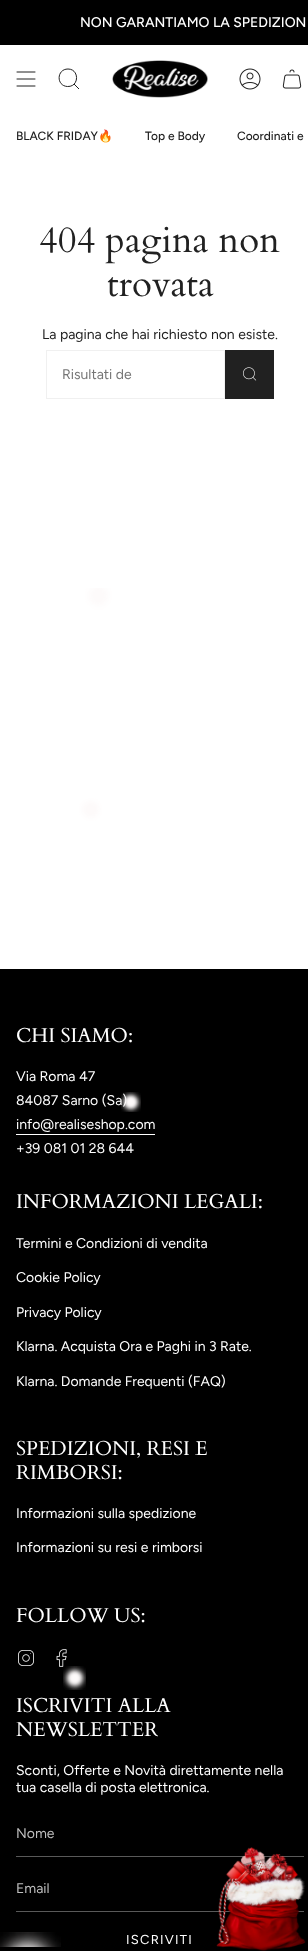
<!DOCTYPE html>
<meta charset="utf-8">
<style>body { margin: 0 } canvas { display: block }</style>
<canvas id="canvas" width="308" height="1951"></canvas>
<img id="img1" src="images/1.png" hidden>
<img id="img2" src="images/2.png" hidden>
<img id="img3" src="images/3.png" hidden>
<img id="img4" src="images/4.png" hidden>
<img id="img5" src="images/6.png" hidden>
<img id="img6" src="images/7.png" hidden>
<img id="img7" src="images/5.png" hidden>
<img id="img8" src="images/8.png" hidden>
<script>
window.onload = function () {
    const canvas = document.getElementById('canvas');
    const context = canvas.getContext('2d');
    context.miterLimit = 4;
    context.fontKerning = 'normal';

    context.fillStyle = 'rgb(255, 255, 255)';
    context.fillRect(0, 0, 308, 1951);
    context.fillStyle = 'rgb(0, 0, 0)';
    context.fillRect(0, 0, 308, 45);
    context.beginPath();
    context.moveTo(17, 72);
    context.lineTo(35, 72);
    context.moveTo(17, 79);
    context.lineTo(35, 79);
    context.moveTo(17, 86);
    context.lineTo(35, 86);
    context.strokeStyle = 'rgb(33, 33, 33)';
    context.lineCap = 'round';
    context.lineJoin = 'round';
    context.stroke();
    context.beginPath();
    context.moveTo(68, 69);
    context.bezierCurveTo(79.5, 69, 79.5, 87, 67.5, 86.5);
    context.bezierCurveTo(56, 86, 56.5, 69, 68, 69);
    context.closePath();
    context.moveTo(74, 84);
    context.lineTo(79, 89);
    context.lineCap = 'butt';
    context.lineJoin = 'miter';
    context.stroke();
    context.drawImage(document.getElementById('img1'), 112, 60, 96, 38);
    context.drawImage(document.getElementById('img2'), 239, 68, 22, 22);
    context.drawImage(document.getElementById('img3'), 282, 69, 20, 20);
    context.strokeStyle = 'rgb(240, 240, 240)';
    context.strokeRect(46.5, 350.5, 178, 48);
    context.fillStyle = 'rgb(33, 33, 33)';
    context.fillRect(225, 350, 49, 49);
    context.drawImage(document.getElementById('img4'), 243, 367, 14, 14);
    context.fillStyle = 'rgb(0, 0, 0)';
    context.fillRect(0, 969, 308, 982);
    context.fillStyle = 'rgb(255, 255, 255)';
    context.fillRect(16, 1134, 139, 1);
    context.drawImage(document.getElementById('img5'), 18, 1650, 16, 16);
    context.drawImage(document.getElementById('img6'), 56, 1649, 11, 18);
    context.fillStyle = 'rgb(89, 89, 89)';
    context.fillRect(16, 1856, 288, 1);
    context.fillRect(16, 1911, 288, 1);
    context.font = '500 14px Figtree';
    context.fillStyle = 'rgb(255, 255, 255)';
    context.fillText('NON GARANTIAMO LA SPEDIZION', 80, 27);
    context.font = '500 12px Figtree';
    context.fillStyle = 'rgb(33, 33, 33)';
    context.fillText('BLACK FRIDAY', 16, 140);
    context.font = '12px Noto Color Emoji';
    context.fillText('🔥', 98, 140);
    context.font = '500 12px Figtree';
    context.fillText('Top e Body', 145, 140);
    context.fillText('Coordinati e', 237, 140);
    context.font = '36.75px Cardo';
    context.fillText('404 pagina non', 39, 252);
    context.fillText('trovata', 107, 296);
    context.font = '14px Figtree';
    context.fillText('La pagina che hai richiesto non esiste.', 42, 339);
    context.fillStyle = 'rgb(117, 117, 117)';
    context.fillText('Risultati de', 62, 379);
    context.font = '20.1px Cardo';
    context.fillStyle = 'rgb(255, 255, 255)';
    context.fillText('CHI SIAMO:', 16, 1042);
    context.font = '14px Figtree';
    context.fillText('Via Roma 47', 16, 1081);
    context.fillText('84087 Sarno (Sa)', 16, 1105);
    context.fillText('info@realiseshop.com', 16, 1129);
    context.fillText('+39 081 01 28 644', 16, 1153);
    context.font = '20.1px Cardo';
    context.fillText('INFORMAZIONI LEGALI:', 16, 1208);
    context.font = '14px Figtree';
    context.fillText('Termini e Condizioni di vendita', 16, 1248);
    context.fillText('Cookie Policy', 16, 1282);
    context.fillText('Privacy Policy', 16, 1317);
    context.fillText('Klarna. Acquista Ora e Paghi in 3 Rate.', 16, 1351);
    context.fillText('Klarna. Domande Frequenti (FAQ)', 16, 1386);
    context.font = '20.1px Cardo';
    context.fillText('SPEDIZIONI, RESI E', 16, 1455);
    context.fillText('RIMBORSI:', 16, 1479);
    context.font = '14px Figtree';
    context.fillText('Informazioni sulla spedizione', 16, 1518);
    context.fillText('Informazioni su resi e rimborsi', 16, 1552);
    context.font = '20.1px Cardo';
    context.fillText('FOLLOW US:', 16, 1622);
    context.fillText('ISCRIVITI ALLA', 16, 1712);
    context.fillText('NEWSLETTER', 16, 1736);
    context.font = '14px Figtree';
    context.fillText('Sconti, Offerte e Novità direttamente nella', 16, 1775);
    context.fillText('tua casella di posta elettronica.', 16, 1792);
    context.fillStyle = 'rgb(191, 191, 191)';
    context.fillText('Nome', 16, 1838);
    context.fillText('Email', 16, 1893);
    context.letterSpacing = '1.25px';
    context.font = '13px Figtree';
    context.fillStyle = 'rgb(255, 255, 255)';
    context.fillText('ISCRIVITI', 126, 1944);
    context.drawImage(document.getElementById('img7'), 0, 588, 292, 1359);
    context.drawImage(document.getElementById('img8'), 216, 1847, 90, 104);
};
</script>
